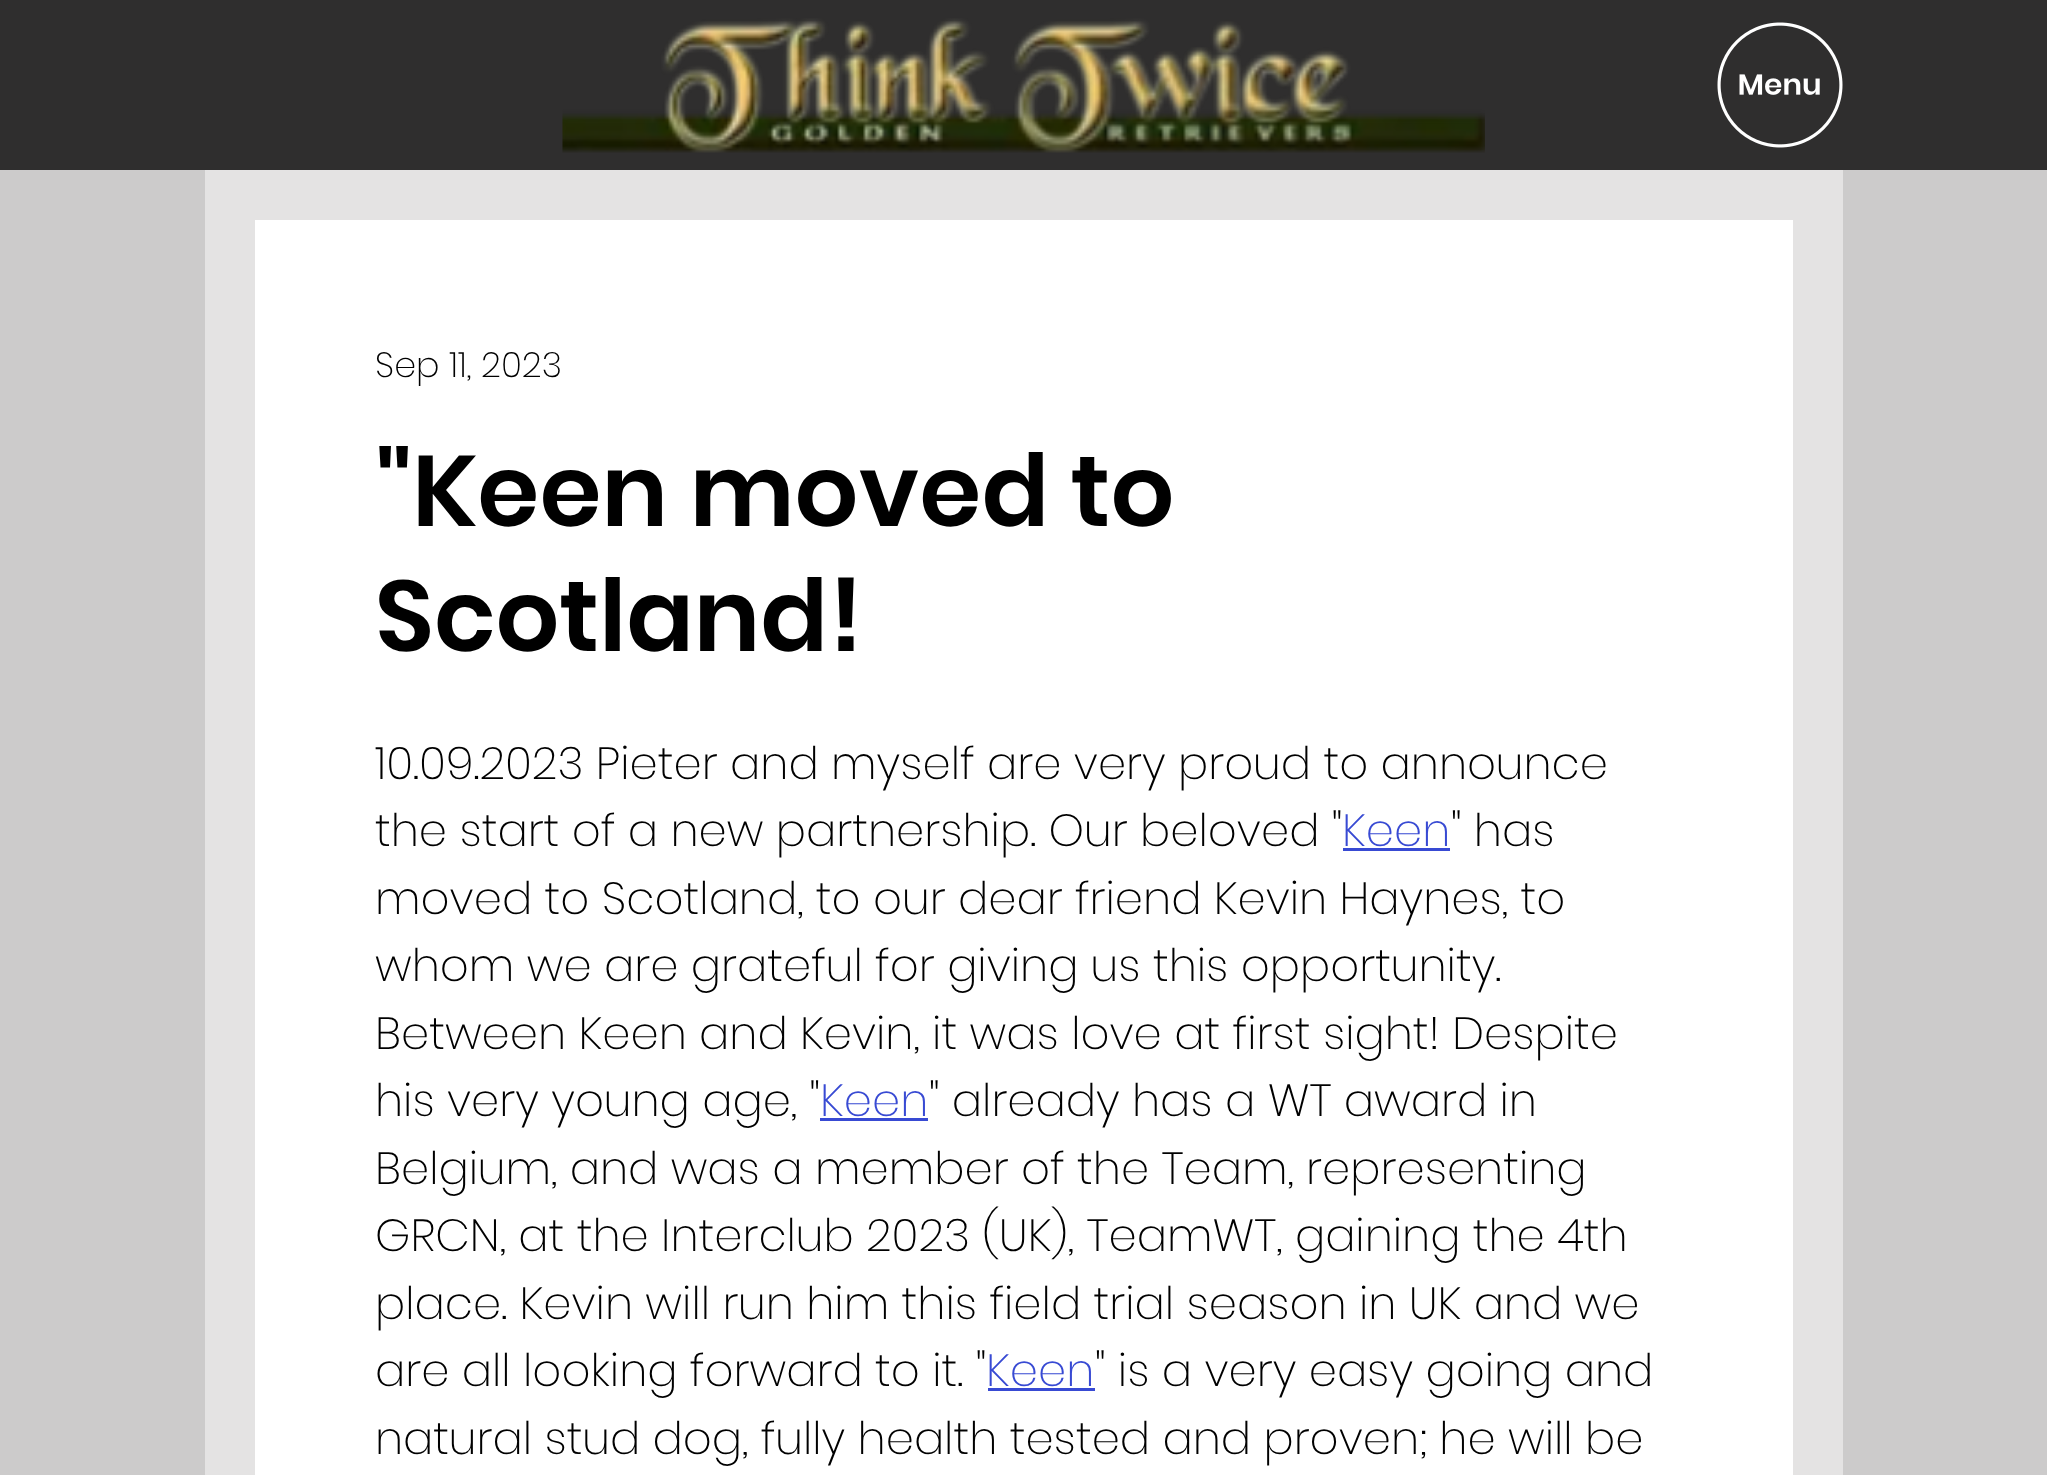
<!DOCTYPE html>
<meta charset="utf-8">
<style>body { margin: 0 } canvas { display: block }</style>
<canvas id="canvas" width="2047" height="1475"></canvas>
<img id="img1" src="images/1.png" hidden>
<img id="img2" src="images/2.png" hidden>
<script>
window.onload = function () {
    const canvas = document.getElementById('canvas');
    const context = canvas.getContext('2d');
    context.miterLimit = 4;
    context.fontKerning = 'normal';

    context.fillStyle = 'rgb(204, 203, 203)';
    context.fillRect(0, 0, 2047, 1475);
    context.fillStyle = 'rgb(47, 46, 46)';
    context.fillRect(0, 0, 2047, 170);
    context.drawImage(document.getElementById('img1'), 562, 18, 923, 135);
    context.drawImage(document.getElementById('img2'), 1717, 22, 126, 126);
    context.fillStyle = 'rgb(228, 227, 227)';
    context.fillRect(205, 170, 1638, 1305);
    context.fillStyle = 'rgb(255, 255, 255)';
    context.fillRect(255, 220, 1538, 1255);
    context.fillStyle = 'rgb(56, 74, 211)';
    context.fillRect(1343, 848, 107, 3);
    context.fillRect(820, 1118, 108, 3);
    context.fillRect(988, 1388, 107, 3);
    context.font = '200 35px Poppins';
    context.fillStyle = 'rgb(0, 0, 0)';
    context.fillText('Sep 11, 2023', 375, 377);
    context.font = '600 100px Poppins';
    context.fillText('"Keen moved to', 375, 526);
    context.fillText('Scotland!', 375, 651);
    context.font = '200 45px Poppins';
    context.fillText('10.09.2023 Pieter and myself are very proud to announce', 375, 779);
    context.fillText('the start of a new partnership. Our beloved "', 375, 846);
    context.fillStyle = 'rgb(56, 74, 211)';
    context.fillText('Keen', 1342, 846);
    context.fillStyle = 'rgb(0, 0, 0)';
    context.fillText('" has', 1451, 846);
    context.fillText('moved to Scotland, to our dear friend Kevin Haynes, to', 375, 914);
    context.fillText('whom we are grateful for giving us this opportunity.', 375, 981);
    context.fillText('Between Keen and Kevin, it was love at first sight! Despite', 375, 1049);
    context.fillText('his very young age, "', 375, 1116);
    context.fillStyle = 'rgb(56, 74, 211)';
    context.fillText('Keen', 820, 1116);
    context.fillStyle = 'rgb(0, 0, 0)';
    context.fillText('" already has a WT award in', 929, 1116);
    context.fillText('Belgium, and was a member of the Team, representing', 375, 1184);
    context.fillText('GRCN, at the Interclub 2023 (UK), TeamWT, gaining the 4th', 375, 1251);
    context.fillText('place. Kevin will run him this field trial season in UK and we', 375, 1319);
    context.fillText('are all looking forward to it. "', 375, 1386);
    context.fillStyle = 'rgb(56, 74, 211)';
    context.fillText('Keen', 986, 1386);
    context.fillStyle = 'rgb(0, 0, 0)';
    context.fillText('" is a very easy going and', 1095, 1386);
    context.fillText('natural stud dog, fully health tested and proven; he will be', 375, 1454);
};
</script>
